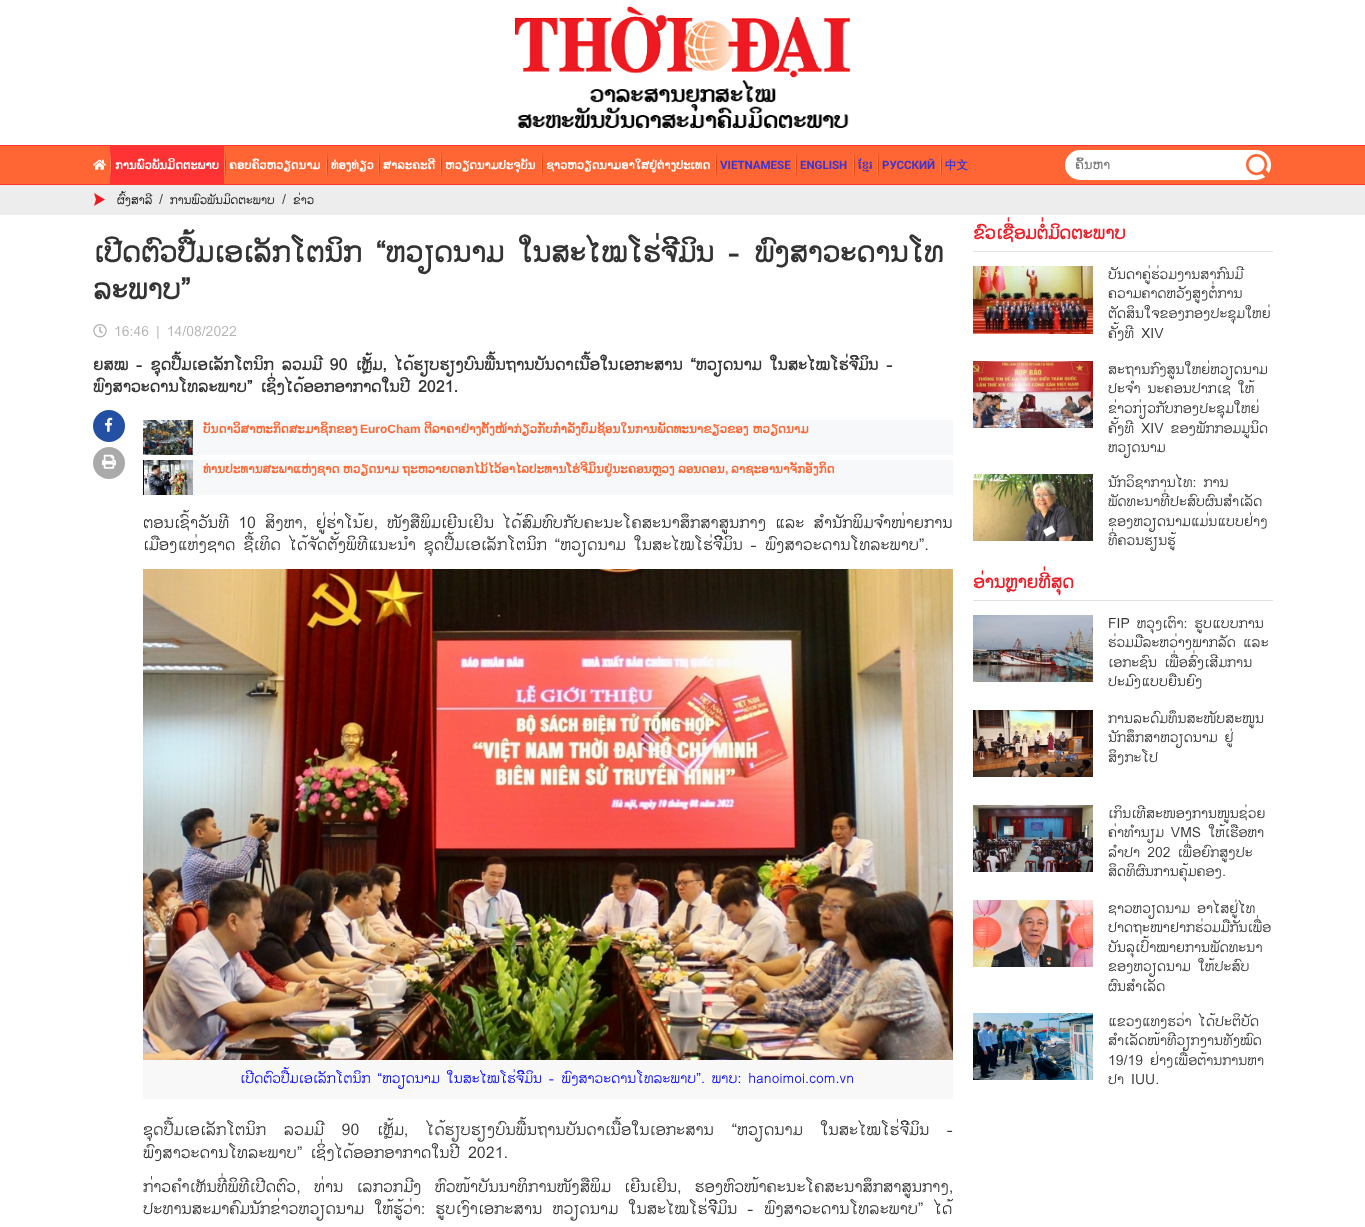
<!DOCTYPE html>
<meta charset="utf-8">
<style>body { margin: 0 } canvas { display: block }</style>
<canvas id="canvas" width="1365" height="1227"></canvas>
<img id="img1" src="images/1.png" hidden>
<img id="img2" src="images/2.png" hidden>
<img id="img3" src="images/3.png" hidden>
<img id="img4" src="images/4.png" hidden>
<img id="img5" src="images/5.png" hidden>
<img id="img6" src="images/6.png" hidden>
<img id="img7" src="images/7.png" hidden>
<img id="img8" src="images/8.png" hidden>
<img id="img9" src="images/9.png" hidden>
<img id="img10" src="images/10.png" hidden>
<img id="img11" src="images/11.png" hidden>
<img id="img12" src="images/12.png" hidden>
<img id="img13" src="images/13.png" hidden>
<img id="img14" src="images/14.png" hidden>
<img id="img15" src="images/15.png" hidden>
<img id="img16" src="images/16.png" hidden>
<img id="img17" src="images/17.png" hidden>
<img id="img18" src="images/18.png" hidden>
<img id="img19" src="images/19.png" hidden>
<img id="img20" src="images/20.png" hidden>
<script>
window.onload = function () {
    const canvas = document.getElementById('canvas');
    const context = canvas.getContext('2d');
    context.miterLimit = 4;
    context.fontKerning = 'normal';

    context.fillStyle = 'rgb(255, 255, 255)';
    context.fillRect(0, 0, 1365, 1227);
    context.drawImage(document.getElementById('img1'), 515, 6, 335, 122);
    context.fillStyle = 'rgb(255, 102, 51)';
    context.fillRect(0, 146, 1365, 38);
    context.fillStyle = 'rgb(255, 51, 51)';
    context.fillRect(0, 145, 1365, 1);
    context.fillRect(0, 184, 1365, 1);
    context.drawImage(document.getElementById('img2'), 93, 159, 13, 11);
    context.fillRect(110, 146, 114, 38);
    context.drawImage(document.getElementById('img3'), 110, 151, 2, 28);
    context.drawImage(document.getElementById('img4'), 224, 152, 2, 26);
    context.drawImage(document.getElementById('img4'), 326, 152, 2, 26);
    context.drawImage(document.getElementById('img4'), 378, 152, 2, 26);
    context.drawImage(document.getElementById('img4'), 440, 152, 2, 26);
    context.drawImage(document.getElementById('img4'), 541, 152, 2, 26);
    context.drawImage(document.getElementById('img4'), 715, 152, 2, 26);
    context.drawImage(document.getElementById('img4'), 795, 152, 2, 26);
    context.drawImage(document.getElementById('img4'), 853, 152, 2, 26);
    context.drawImage(document.getElementById('img4'), 877, 152, 2, 26);
    context.drawImage(document.getElementById('img4'), 940, 152, 2, 26);
    context.fillStyle = 'rgb(255, 255, 255)';
    context.beginPath();
    context.roundRect(1065, 150, 206, 30, 15);
    context.fill();
    context.drawImage(document.getElementById('img5'), 1246, 154, 23, 23);
    context.fillStyle = 'rgb(237, 237, 237)';
    context.fillRect(0, 185, 1365, 30);
    context.drawImage(document.getElementById('img6'), 94, 193, 11, 13);
    context.drawImage(document.getElementById('img7'), 93, 324, 14, 14);
    context.fillStyle = 'rgb(35, 80, 163)';
    context.beginPath();
    context.arc(109, 426, 16, 0, 2 * Math.PI);
    context.fill();
    context.drawImage(document.getElementById('img8'), 105, 417, 8, 15);
    context.fillStyle = 'rgb(170, 170, 170)';
    context.beginPath();
    context.arc(109, 463, 16, 0, 2 * Math.PI);
    context.fill();
    context.drawImage(document.getElementById('img9'), 102, 454, 14, 15);
    context.fillStyle = 'rgb(247, 248, 250)';
    context.fillRect(193, 420, 760, 35);
    context.drawImage(document.getElementById('img10'), 143, 420, 50, 35);
    context.fillRect(193, 460, 760, 35);
    context.drawImage(document.getElementById('img11'), 143, 460, 50, 35);
    context.drawImage(document.getElementById('img12'), 143, 569, 810, 491);
    context.fillStyle = 'rgb(248, 248, 248)';
    context.fillRect(143, 1060, 810, 39);
    context.fillStyle = 'rgb(225, 225, 225)';
    context.fillRect(973, 251, 300, 1);
    context.drawImage(document.getElementById('img13'), 973, 266, 120, 68);
    context.drawImage(document.getElementById('img14'), 973, 361, 120, 67);
    context.drawImage(document.getElementById('img15'), 973, 474, 120, 67);
    context.fillRect(973, 600, 300, 1);
    context.drawImage(document.getElementById('img16'), 973, 615, 120, 67);
    context.drawImage(document.getElementById('img17'), 973, 710, 120, 67);
    context.drawImage(document.getElementById('img18'), 973, 805, 120, 67);
    context.drawImage(document.getElementById('img19'), 973, 900, 120, 67);
    context.drawImage(document.getElementById('img20'), 973, 1013, 120, 67);
    context.font = 'bold 11.5px DejaVu Sans';
    context.fillStyle = 'rgb(255, 255, 255)';
    context.fillText('ການພົວພັນມິດຕະພາບ', 115, 169);
    context.fillText('ຄອບຄົວຫວຽດນາມ', 229, 169);
    context.fillText('ທ່ອງທ່ຽວ', 331, 169);
    context.fillText('ສາລະຄະດີ', 383, 169);
    context.fillText('ຫວຽດນາມປະຈຸບັນ', 445, 169);
    context.fillText('ຊາວຫວຽດນາມອາໃສຢູ່ຕ່າງປະເທດ', 546, 169);
    context.font = 'bold 11.5px Roboto';
    context.fillStyle = 'rgb(59, 52, 212)';
    context.fillText('VIETNAMESE', 720, 169);
    context.fillText('ENGLISH', 800, 169);
    context.font = 'bold 11.5px Hanuman';
    context.fillText('ខ្មែរ', 858, 169);
    context.font = 'bold 11.5px Roboto';
    context.fillText('РУССКИЙ', 882, 169);
    context.font = 'bold 11.5px WenQuanYi Zen Hei';
    context.fillText('中文', 945, 169);
    context.save();
    context.beginPath();
    context.rect(1075, 157, 166, 15);
    context.clip();
    context.font = '13px DejaVu Sans';
    context.fillStyle = 'rgb(117, 117, 117)';
    context.fillText('ຄົ້ນຫາ', 1075, 169);
    context.restore();
    context.font = '12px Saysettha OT';
    context.fillStyle = 'rgb(0, 0, 0)';
    context.fillText('ຜົ້ງສາລີ', 117, 204);
    context.font = '14px Saysettha OT';
    context.fillStyle = 'rgb(51, 51, 51)';
    context.fillText('/', 159, 204);
    context.font = '12px Saysettha OT';
    context.fillStyle = 'rgb(0, 0, 0)';
    context.fillText('ການພົວພັນມິດຕະພາບ', 170, 204);
    context.font = '14px Saysettha OT';
    context.fillStyle = 'rgb(51, 51, 51)';
    context.fillText('/', 282, 204);
    context.font = '12px Saysettha OT';
    context.fillStyle = 'rgb(0, 0, 0)';
    context.fillText('ຂ່າວ', 293, 204);
    context.font = 'bold 28.8px Saysettha OT';
    context.fillStyle = 'rgb(51, 51, 51)';
    context.fillText('ເປີດຕົວປື້ມເອເລັກໂຕນິກ “ຫວຽດນາມ ໃນສະໄໝໂຮ່ຈິີມິນ - ພົງສາວະດານໂທ', 93, 262);
    context.fillText('ລະພາບ”', 93, 299);
    context.font = '14px Saysettha OT';
    context.fillStyle = 'rgb(179, 179, 179)';
    context.fillText('16:46 | 14/08/2022', 114, 336);
    context.font = 'bold 16px Saysettha OT';
    context.fillStyle = 'rgb(51, 51, 51)';
    context.fillText('ຍສໝ - ຊຸດປື້ມເອເລັກໂຕນິກ ລວມມີ 90 ເຫຼັ້ມ, ໄດ້ຮຽບຮຽງບົນພື້ນຖານບັນດາເນື້ອໃນເອກະສານ “ຫວຽດນາມ ໃນສະໄໝໂຮ່ຈິີມິນ -', 93, 370);
    context.fillText('ພົງສາວະດານໂທລະພາບ” ເຊິ່ງໄດ້ອອກອາກາດໃນປີ 2021.', 93, 392);
    context.font = 'bold 12px DejaVu Sans';
    context.fillStyle = 'rgb(255, 102, 51)';
    context.fillText('ບັນດາວິສາຫະກິດສະມາຊິກຂອງ', 203, 433);
    context.font = 'bold 12px Liberation Sans';
    context.fillText('EuroCham', 360, 433);
    context.font = 'bold 12px DejaVu Sans';
    context.fillText('ຕີລາຄາຢ່າງຕັ້ງໜ້າກ່ຽວກັບກຳລັງບົ່ມຊ້ອນໃນການພັດທະນາຂຽວຂອງ ຫວຽດນາມ', 424, 433);
    context.wordSpacing = '-0.5px';
    context.fillText('ທ່ານປະທານສະພາແຫ່ງຊາດ ຫວຽດນາມ ຖະຫວາຍດອກໄມ້ໄວ້ອາໄລປະທານໂຮ່ຈີມິນຢູ່ນະຄອນຫຼວງ ລອນດອນ', 203, 473);
    context.wordSpacing = '0px';
    context.font = 'bold 12px Liberation Sans';
    context.fillText(',', 725, 473);
    context.font = 'bold 12px DejaVu Sans';
    context.fillText('ລາຊະອານາຈັກອັງກິດ', 731, 473);
    context.wordSpacing = '1px';
    context.font = '16px Saysettha OT';
    context.fillStyle = 'rgb(51, 51, 51)';
    context.fillText('ຕອນເຊົ້າວັນທີ 10 ສິງຫາ, ຢູ່ຮ່າໂນ້ຍ, ໜັງສືພິມເຍີນເຢິນ ໄດ້ສົມທົບກັບຄະນະໂຄສະນາສຶກສາສູນກາງ ແລະ ສຳນັກພິມຈຳໜ່າຍການ', 143, 528);
    context.wordSpacing = '0px';
    context.fillText('ເມືອງແຫ່ງຊາດ ຊື້ເທິດ ໄດ້ຈັດຕັ້ງພິທີແນະນຳ ຊຸດປື້ມເອເລັກໂຕນິກ “ຫວຽດນາມ ໃນສະໄໝໂຮ່ຈິີມິນ - ພົງສາວະດານໂທລະພາບ”.', 143, 550);
    context.font = '14px Saysettha OT';
    context.fillStyle = 'rgb(0, 0, 255)';
    context.fillText('ເປີດຕົວປື້ມເອເລັກໂຕນິກ “ຫວຽດນາມ ໃນສະໄໝໂຮ່ຈິີມິນ - ພົງສາວະດານໂທລະພາບ”. ພາບ: hanoimoi.com.vn', 240, 1083);
    context.wordSpacing = '9.75px';
    context.font = '16px Saysettha OT';
    context.fillStyle = 'rgb(51, 51, 51)';
    context.fillText('ຊຸດປື້ມເອເລັກໂຕນິກ ລວມມີ 90 ເຫຼັ້ມ, ໄດ້ຮຽບຮຽງບົນພື້ນຖານບັນດາເນື້ອໃນເອກະສານ “ຫວຽດນາມ ໃນສະໄໝໂຮ່ຈິີມິນ -', 143, 1135);
    context.wordSpacing = '0px';
    context.fillText('ພົງສາວະດານໂທລະພາບ” ເຊິ່ງໄດ້ອອກອາກາດໃນປີ 2021.', 143, 1158);
    context.wordSpacing = '5.25px';
    context.fillText('ກ່າວຄຳເຫັນທີ່ພິທີເປີດຕົວ, ທ່ານ ເລກວກມີງ ຫົວໜ້າບັນນາທິການໜັງສືພິມ ເຍີນເຢິນ, ຮອງຫົວໜ້າຄະນະໂຄສະນາສຶກສາສູນກາງ,', 143, 1192);
    context.wordSpacing = '2.25px';
    context.fillText('ປະທານສະມາຄົມນັກຂ່າວຫວຽດນາມ ໃຫ້ຮູ້ວ່າ: ຮູບເງົາເອກະສານ ຫວຽດນາມ ໃນສະໄໝໂຮ່ຈິີມິນ - ພົງສາວະດານໂທລະພາບ” ໄດ້', 143, 1214);
    context.wordSpacing = '0px';
    context.font = 'bold 18px Saysettha OT';
    context.fillStyle = 'rgb(237, 27, 36)';
    context.fillText('ຂົວເຊື່ອມຕໍ່ມິດຕະພາບ', 973, 239);
    context.font = '14px Saysettha OT';
    context.fillStyle = 'rgb(51, 51, 51)';
    context.fillText('ບັນດາຄູ່ຮ່ວມງານສາກົນມີ', 1108, 279);
    context.fillText('ຄວາມຄາດຫວັງສູງຕໍ່ການ', 1108, 298);
    context.fillText('ຕັດສິນໃຈຂອງກອງປະຊຸມໃຫຍ່', 1108, 318);
    context.fillText('ຄັ້ງທີ XIV', 1108, 338);
    context.fillText('ສະຖານກົງສູນໃຫຍ່ຫວຽດນາມ', 1108, 374);
    context.fillText('ປະຈໍາ ນະຄອນປາກເຊ ໃຫ້', 1108, 393);
    context.fillText('ຂ່າວກ່ຽວກັບກອງປະຊຸມໃຫຍ່', 1108, 413);
    context.fillText('ຄັ້ງທີ XIV ຂອງພັກກອມມູນິດ', 1108, 433);
    context.fillText('ຫວຽດນາມ', 1108, 452);
    context.fillText('ນັກວິຊາການໄທ: ການ', 1108, 487);
    context.fillText('ພັດທະນາທີ່ປະສົບຜົນສຳເລັດ', 1108, 506);
    context.fillText('ຂອງຫວຽດນາມແມ່ນແບບຢ່າງ', 1108, 526);
    context.fillText('ທີ່ຄວນຮຽນຮູ້', 1108, 545);
    context.font = 'bold 18px Saysettha OT';
    context.fillStyle = 'rgb(237, 27, 36)';
    context.fillText('ອ່ານຫຼາຍທີ່ສຸດ', 973, 588);
    context.font = '14px Saysettha OT';
    context.fillStyle = 'rgb(51, 51, 51)';
    context.fillText('FIP ຫວຸງເຕົາ: ຮູບແບບການ', 1108, 628);
    context.fillText('ຮ່ວມມືລະຫວ່າງພາກລັດ ແລະ', 1108, 647);
    context.fillText('ເອກະຊົນ ເພື່ອສົ່ງເສີມການ', 1108, 667);
    context.fillText('ປະມົງແບບຍືນຍົງ', 1108, 686);
    context.fillText('ການລະດົມທຶນສະໜັບສະໜູນ', 1108, 723);
    context.fillText('ນັກສຶກສາຫວຽດນາມ ຢູ່', 1108, 742);
    context.fillText('ສິງກະໂປ', 1108, 762);
    context.fillText('ເກິນເທີສະໜອງການໜູນຊ່ວຍ', 1108, 818);
    context.fillText('ຄ່າທຳນຽມ VMS ໃຫ້ເຮືອຫາ', 1108, 837);
    context.fillText('ລຳປາ 202 ເພື່ອຍົກສູງປະ', 1108, 857);
    context.fillText('ສິດທິຜົນການຄຸ້ມຄອງ.', 1108, 876);
    context.fillText('ຊາວຫວຽດນາມ ອາໄສຢູ່ໄທ', 1108, 913);
    context.fillText('ປາດຖະໜາຢາກຮ່ວມມືກັນເພື່ອ', 1108, 932);
    context.fillText('ບັນລຸເປົ້າໝາຍການພັດທະນາ', 1108, 952);
    context.fillText('ຂອງຫວຽດນາມ ໃຫ້ປະສົບ', 1108, 971);
    context.fillText('ຜົນສຳເລັດ', 1108, 991);
    context.fillText('ແຂວງແທງຮວ່າ ໄດ້ປະຕິບັດ', 1108, 1026);
    context.fillText('ສຳເລັດໜ້າທີວຽກງານທັງໝົດ', 1108, 1045);
    context.fillText('19/19 ຢ່າງເພື່ອຕ້ານການຫາ', 1108, 1065);
    context.fillText('ປາ IUU.', 1108, 1084);
};
</script>
